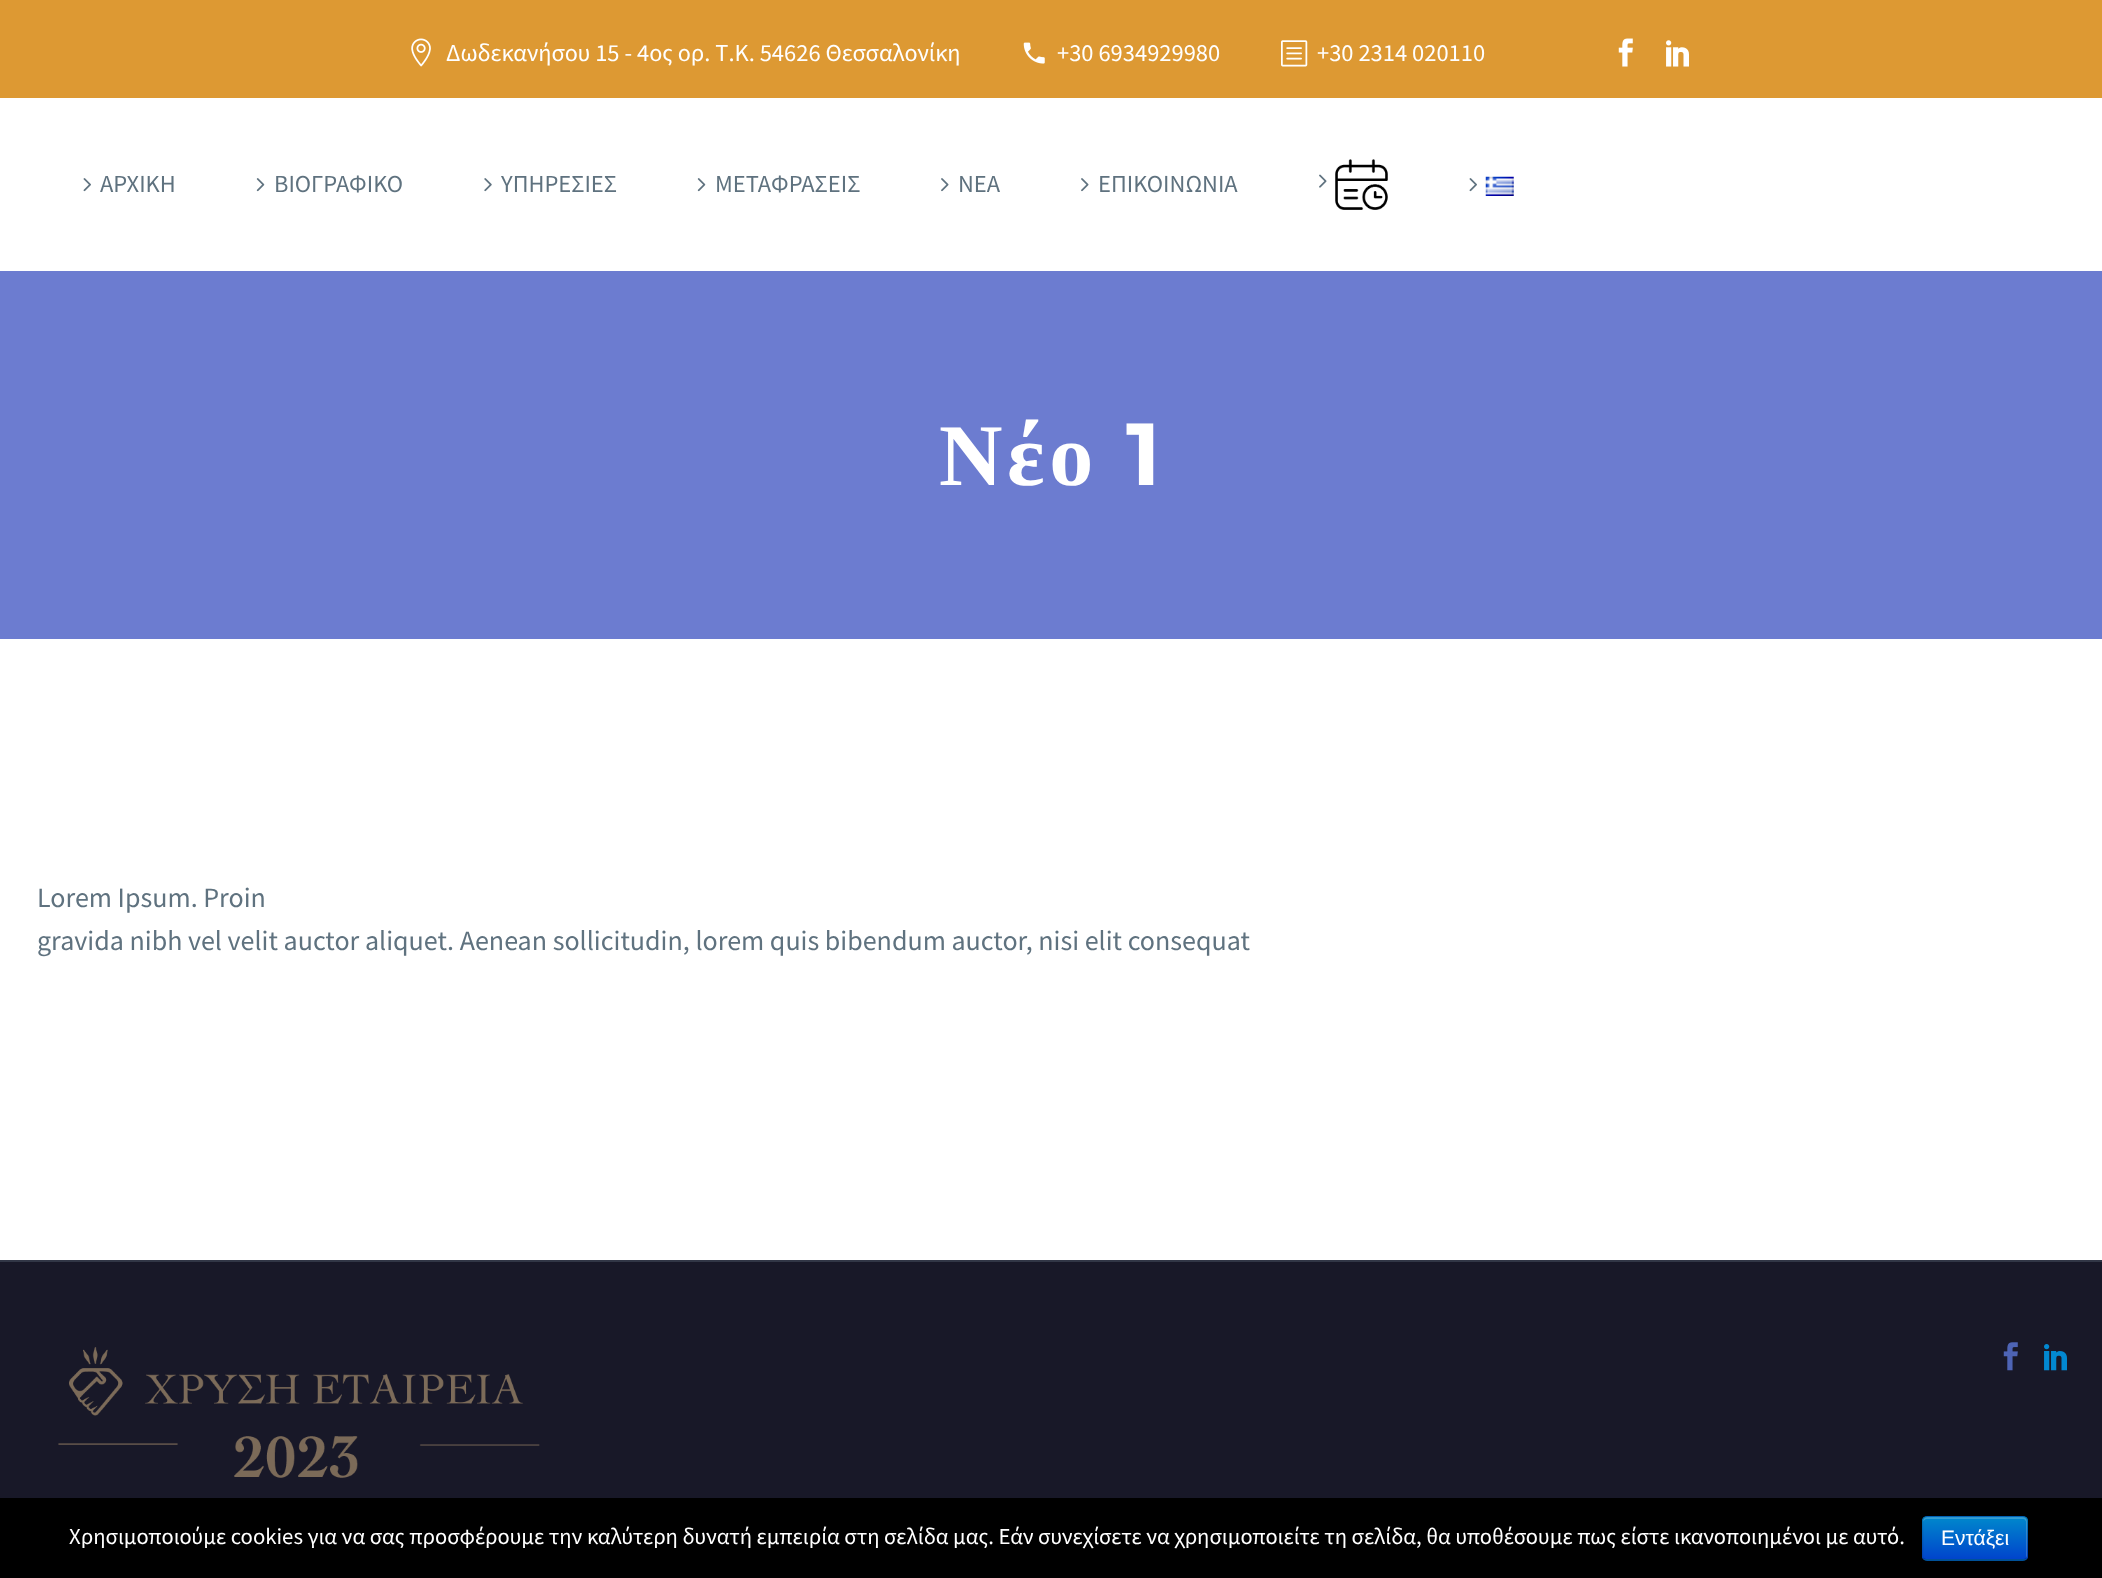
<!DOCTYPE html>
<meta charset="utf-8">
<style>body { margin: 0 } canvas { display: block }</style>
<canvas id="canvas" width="2102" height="1578"></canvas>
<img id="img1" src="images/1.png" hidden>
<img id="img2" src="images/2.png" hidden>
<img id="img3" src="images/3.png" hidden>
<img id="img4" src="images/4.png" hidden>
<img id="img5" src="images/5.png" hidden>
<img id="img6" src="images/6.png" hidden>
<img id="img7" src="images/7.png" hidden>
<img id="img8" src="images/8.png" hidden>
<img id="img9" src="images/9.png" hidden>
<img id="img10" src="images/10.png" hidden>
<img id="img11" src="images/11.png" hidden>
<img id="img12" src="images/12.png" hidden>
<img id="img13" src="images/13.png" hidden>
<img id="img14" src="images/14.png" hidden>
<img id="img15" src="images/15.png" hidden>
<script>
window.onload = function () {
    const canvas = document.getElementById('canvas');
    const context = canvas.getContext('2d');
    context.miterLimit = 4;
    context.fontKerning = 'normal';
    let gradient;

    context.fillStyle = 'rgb(255, 255, 255)';
    context.fillRect(0, 0, 2102, 1578);
    context.fillStyle = 'rgb(221, 153, 51)';
    context.fillRect(0, 0, 2102, 98);
    context.drawImage(document.getElementById('img1'), 411, 38, 20, 29);
    context.drawImage(document.getElementById('img2'), 1023, 42, 22, 22);
    context.drawImage(document.getElementById('img3'), 1281, 40, 27, 27);
    context.drawImage(document.getElementById('img4'), 1618, 38, 15, 29);
    context.drawImage(document.getElementById('img5'), 1666, 40, 23, 27);
    context.drawImage(document.getElementById('img6'), 83, 178, 8, 14);
    context.drawImage(document.getElementById('img7'), 256, 178, 9, 14);
    context.drawImage(document.getElementById('img8'), 484, 178, 8, 14);
    context.drawImage(document.getElementById('img7'), 697, 178, 9, 14);
    context.drawImage(document.getElementById('img9'), 941, 178, 8, 14);
    context.drawImage(document.getElementById('img9'), 1081, 178, 8, 14);
    context.drawImage(document.getElementById('img10'), 1319, 174, 8, 14);
    context.drawImage(document.getElementById('img11'), 1335, 159, 53, 51);
    context.drawImage(document.getElementById('img6'), 1469, 178, 8, 14);
    context.drawImage(document.getElementById('img12'), 1485, 176, 29, 20);
    context.fillStyle = 'rgb(108, 124, 208)';
    context.fillRect(0, 271, 2102, 368);
    context.fillStyle = 'rgb(24, 24, 40)';
    context.fillRect(0, 1262, 2102, 236);
    context.fillStyle = 'rgb(49, 54, 70)';
    context.fillRect(0, 1260, 2102, 2);
    context.drawImage(document.getElementById('img13'), 58, 1347, 482, 131);
    context.drawImage(document.getElementById('img14'), 2003, 1342, 15, 29);
    context.drawImage(document.getElementById('img15'), 2044, 1344, 23, 27);
    context.fillStyle = 'rgb(0, 0, 0)';
    context.fillRect(0, 1498, 2102, 80);
    context.fillStyle = 'rgb(0, 109, 204)';
    context.beginPath();
    context.roundRect(1922, 1516, 106, 45, 5);
    context.fill();
    context.save();
    context.beginPath();
    context.roundRect(1922, 1516, 106, 45, 5);
    context.clip();
    gradient = context.createLinearGradient(1975, 1517, 1975, 1559);
    gradient.addColorStop(0, 'rgb(0, 136, 204)');
    gradient.addColorStop(1, 'rgb(0, 68, 204)');
    context.fillStyle = gradient;
    context.fillRect(1922, 1517, 106, 42);
    context.restore();
    context.fillStyle = 'rgba(255, 255, 255, 0.2)';
    context.beginPath();
    context.moveTo(1927, 1519);
    context.lineTo(2023, 1519);
    context.bezierCurveTo(2025, 1519, 2026, 1521, 2026, 1522);
    context.lineTo(2026, 1558);
    context.bezierCurveTo(2027, 1557, 2027, 1556, 2027, 1555);
    context.lineTo(2027, 1521);
    context.bezierCurveTo(2027, 1519, 2025, 1517, 2023, 1517);
    context.lineTo(1927, 1517);
    context.bezierCurveTo(1925, 1517, 1923, 1519, 1923, 1521);
    context.lineTo(1923, 1522);
    context.bezierCurveTo(1923, 1521, 1925, 1519, 1927, 1519);
    context.closePath();
    context.fill();
    context.beginPath();
    context.moveTo(2026, 1559);
    context.lineTo(2023.5, 1560);
    context.lineTo(1926.5, 1560);
    context.lineTo(1923.5, 1559);
    context.strokeStyle = 'rgba(0, 0, 0, 0.25)';
    context.lineWidth = 1.8;
    context.stroke();
    context.beginPath();
    context.moveTo(1923.5, 1559);
    context.bezierCurveTo(1921.5, 1556.5, 1922.5, 1552.5, 1922.5, 1550);
    context.lineTo(1922.5, 1538);
    context.bezierCurveTo(1922.5, 1513.5, 1918, 1516.5, 1943, 1516.5);
    context.lineTo(2007, 1516.5);
    context.bezierCurveTo(2032, 1516.5, 2027.5, 1513.5, 2027.5, 1538);
    context.lineTo(2027.5, 1550);
    context.bezierCurveTo(2027.5, 1552.5, 2028.5, 1556.5, 2026, 1559);
    context.strokeStyle = 'rgba(0, 0, 0, 0.1)';
    context.stroke();
    context.font = '24.5px Source Sans Pro';
    context.fillStyle = 'rgb(255, 255, 255)';
    context.fillText('Δωδεκανήσου 15 - 4ος ορ. Τ.Κ. 54626 Θεσσαλονίκη', 446, 61);
    context.fillText('+30 6934929980', 1057, 61);
    context.fillText('+30 2314 020110', 1317, 61);
    context.fillStyle = 'rgb(95, 114, 127)';
    context.fillText('ΑΡΧΙΚΗ', 100, 192);
    context.fillText('ΒΙΟΓΡΑΦΙΚΟ', 274, 192);
    context.fillText('ΥΠΗΡΕΣΙΕΣ', 501, 192);
    context.fillText('ΜΕΤΑΦΡΑΣΕΙΣ', 715, 192);
    context.fillText('ΝΕΑ', 958, 192);
    context.fillText('ΕΠΙΚΟΙΝΩΝΙΑ', 1098, 192);
    context.letterSpacing = '4.5px';
    context.font = 'bold 88px Liberation Serif';
    context.fillStyle = 'rgb(255, 255, 255)';
    context.fillText('Νέο', 939, 485);
    context.font = 'bold 88px Montserrat';
    context.fillText('1', 1126, 485);
    context.letterSpacing = '0px';
    context.font = '28px Source Sans Pro';
    context.fillStyle = 'rgb(95, 114, 127)';
    context.fillText('Lorem Ipsum. Proin', 37, 907);
    context.fillText('gravida nibh vel velit auctor aliquet. Aenean sollicitudin, lorem quis bibendum auctor, nisi elit consequat', 37, 950);
    context.font = '22.75px Source Sans Pro';
    context.fillStyle = 'rgb(255, 255, 255)';
    context.fillText('Χρησιμοποιούμε cookies για να σας προσφέρουμε την καλύτερη δυνατή εμπειρία στη σελίδα μας. Εάν συνεχίσετε να χρησιμοποιείτε τη σελίδα, θα υποθέσουμε πως είστε ικανοποιημένοι με αυτό.', 69, 1544);
    context.font = '21px Liberation Sans';
    context.fillText('Εντάξει', 1941, 1545);
};
</script>
